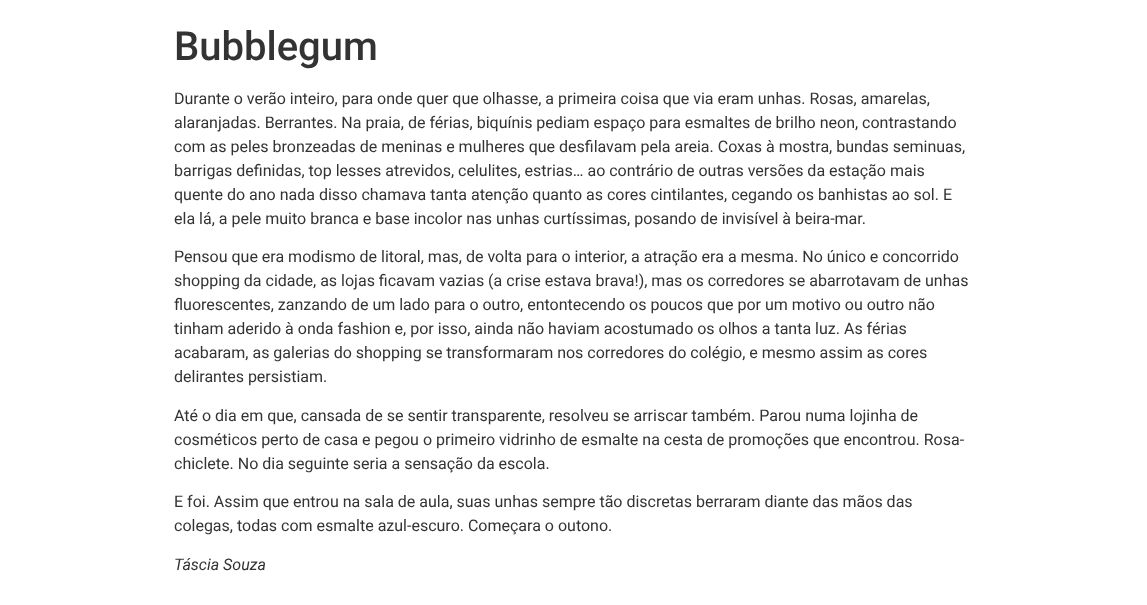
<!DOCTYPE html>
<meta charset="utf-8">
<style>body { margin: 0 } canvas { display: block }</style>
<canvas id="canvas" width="1147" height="605"></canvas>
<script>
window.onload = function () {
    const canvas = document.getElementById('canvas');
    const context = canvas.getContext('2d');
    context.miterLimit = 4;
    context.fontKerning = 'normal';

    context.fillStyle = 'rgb(255, 255, 255)';
    context.fillRect(0, 0, 1147, 605);
    context.font = '500 40px Roboto';
    context.fillStyle = 'rgb(51, 51, 51)';
    context.fillText('Bubblegum', 174, 60);
    context.font = '16px Roboto';
    context.fillText('Durante o verão inteiro, para onde quer que olhasse, a primeira coisa que via eram unhas. Rosas, amarelas,', 174, 104);
    context.fillText('alaranjadas. Berrantes. Na praia, de férias, biquínis pediam espaço para esmaltes de brilho neon, contrastando', 174, 128);
    context.fillText('com as peles bronzeadas de meninas e mulheres que desfilavam pela areia. Coxas à mostra, bundas seminuas,', 174, 152);
    context.fillText('barrigas definidas, top lesses atrevidos, celulites, estrias… ao contrário de outras versões da estação mais', 174, 176);
    context.fillText('quente do ano nada disso chamava tanta atenção quanto as cores cintilantes, cegando os banhistas ao sol. E', 174, 200);
    context.fillText('ela lá, a pele muito branca e base incolor nas unhas curtíssimas, posando de invisível à beira-mar.', 174, 224);
    context.fillText('Pensou que era modismo de litoral, mas, de volta para o interior, a atração era a mesma. No único e concorrido', 174, 262);
    context.fillText('shopping da cidade, as lojas ficavam vazias (a crise estava brava!), mas os corredores se abarrotavam de unhas', 174, 286);
    context.fillText('fluorescentes, zanzando de um lado para o outro, entontecendo os poucos que por um motivo ou outro não', 174, 310);
    context.fillText('tinham aderido à onda fashion e, por isso, ainda não haviam acostumado os olhos a tanta luz. As férias', 174, 334);
    context.fillText('acabaram, as galerias do shopping se transformaram nos corredores do colégio, e mesmo assim as cores', 174, 358);
    context.fillText('delirantes persistiam.', 174, 382);
    context.fillText('Até o dia em que, cansada de se sentir transparente, resolveu se arriscar também. Parou numa lojinha de', 174, 421);
    context.fillText('cosméticos perto de casa e pegou o primeiro vidrinho de esmalte na cesta de promoções que encontrou. Rosa-', 174, 445);
    context.fillText('chiclete. No dia seguinte seria a sensação da escola.', 174, 469);
    context.fillText('E foi. Assim que entrou na sala de aula, suas unhas sempre tão discretas berraram diante das mãos das', 174, 507);
    context.fillText('colegas, todas com esmalte azul-escuro. Começara o outono.', 174, 531);
    context.font = 'italic 16px Roboto';
    context.fillText('Táscia Souza', 174, 570);
};
</script>
